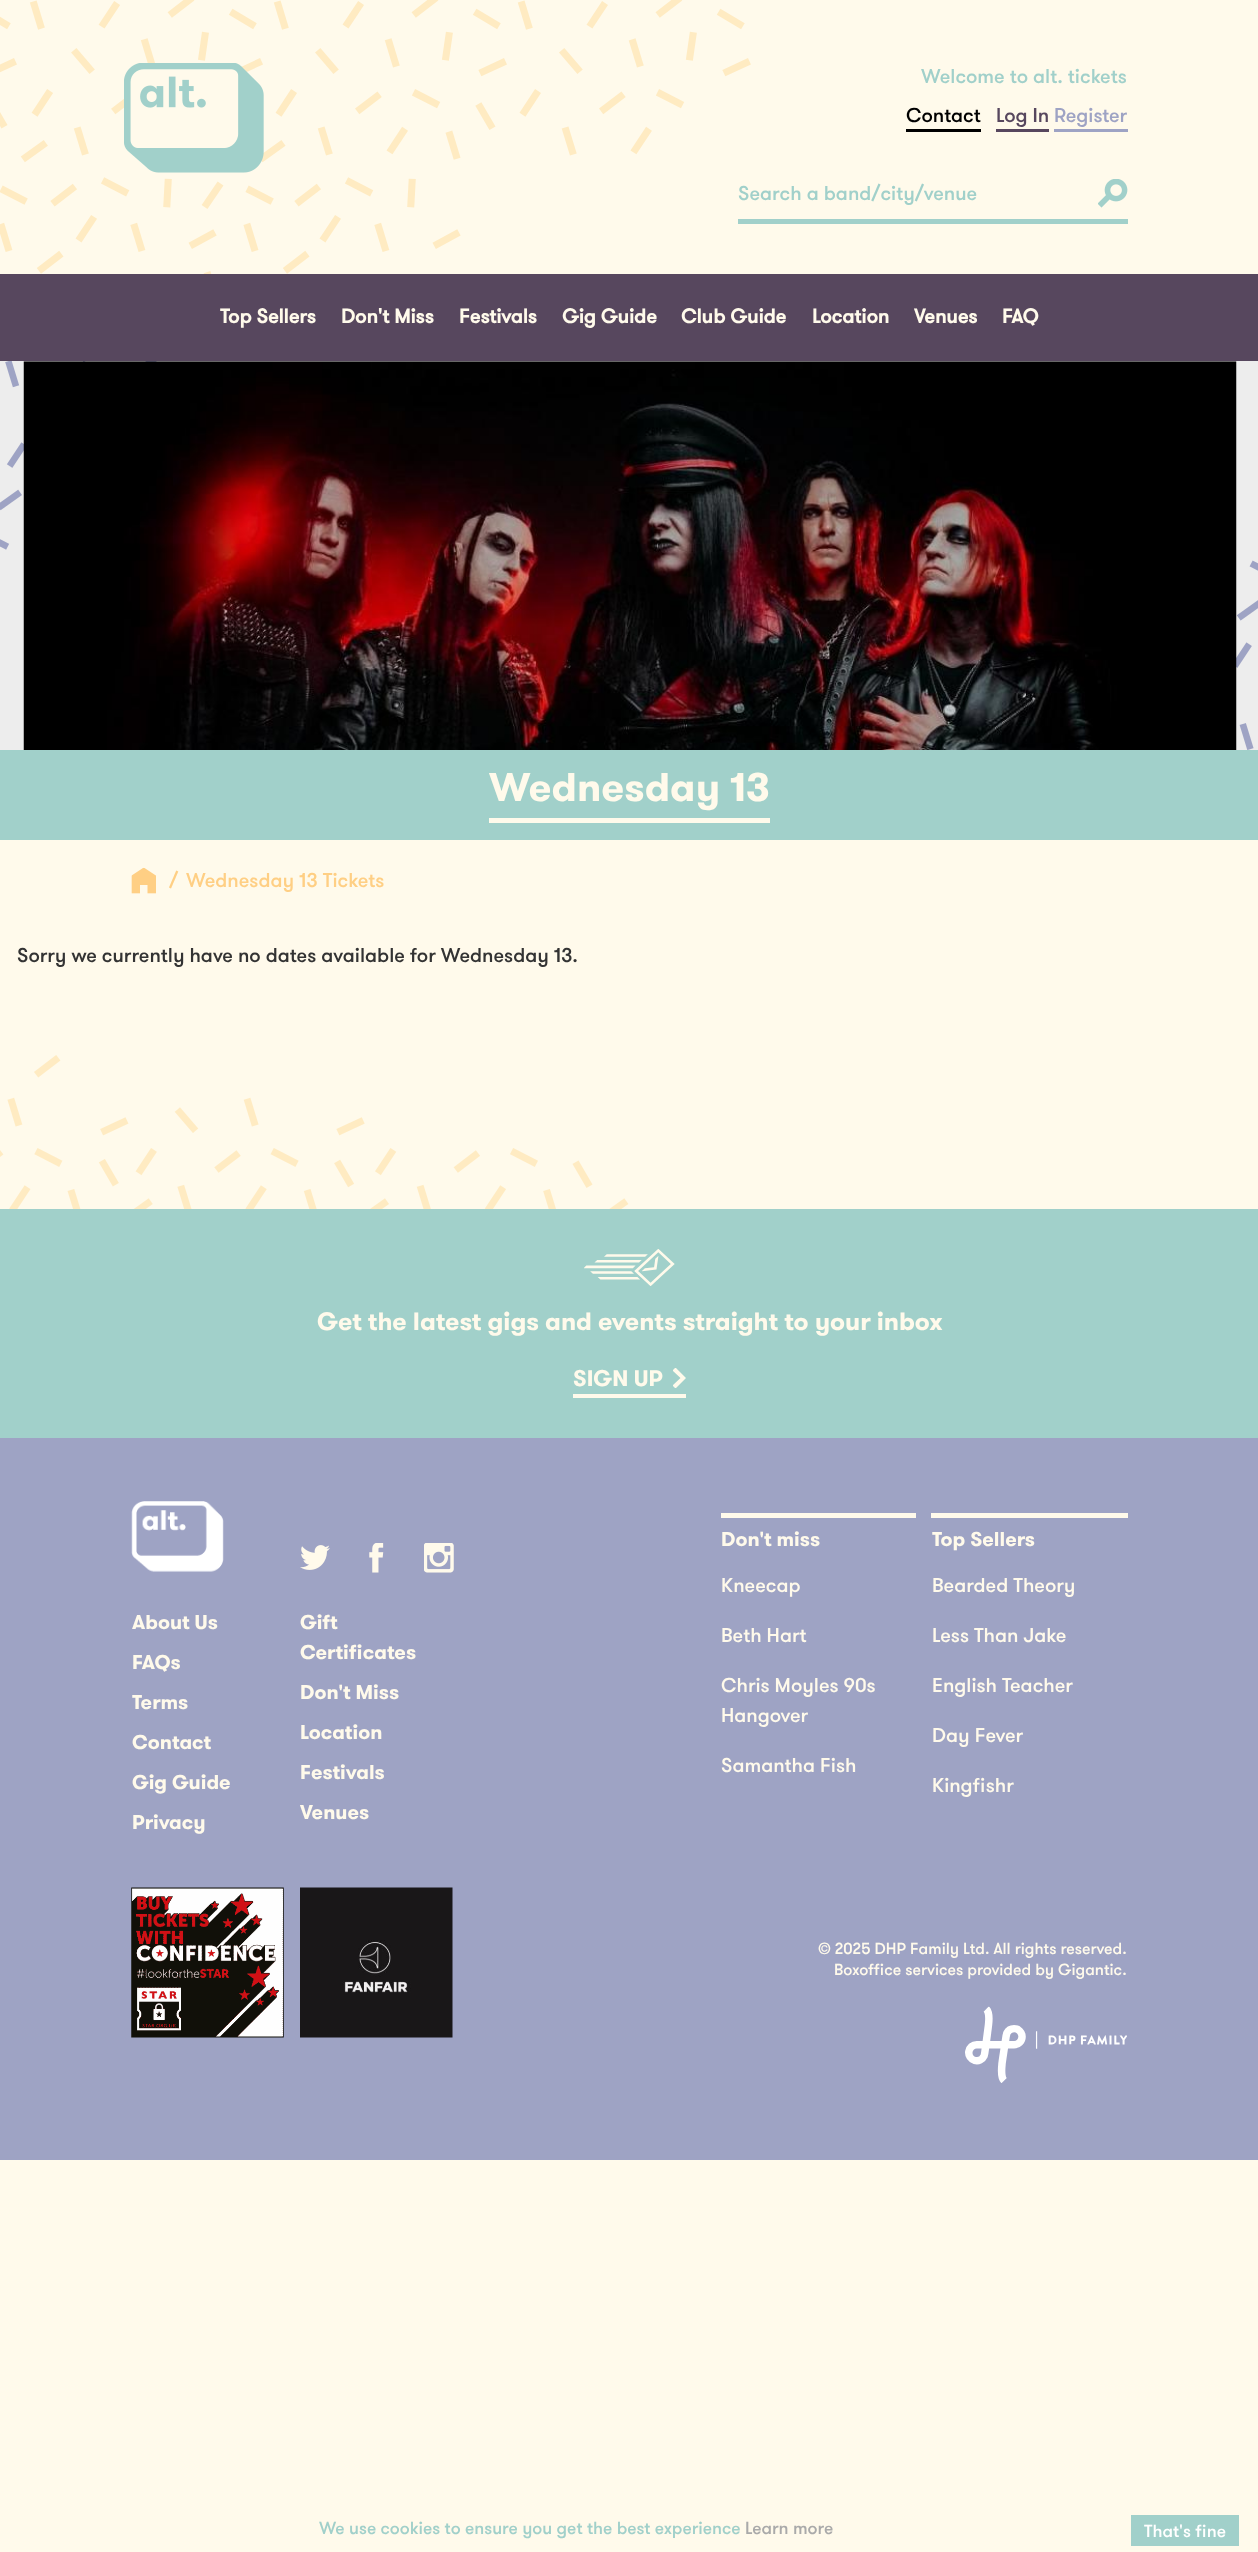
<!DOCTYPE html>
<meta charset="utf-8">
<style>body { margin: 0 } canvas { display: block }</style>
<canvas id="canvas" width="1258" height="2552"></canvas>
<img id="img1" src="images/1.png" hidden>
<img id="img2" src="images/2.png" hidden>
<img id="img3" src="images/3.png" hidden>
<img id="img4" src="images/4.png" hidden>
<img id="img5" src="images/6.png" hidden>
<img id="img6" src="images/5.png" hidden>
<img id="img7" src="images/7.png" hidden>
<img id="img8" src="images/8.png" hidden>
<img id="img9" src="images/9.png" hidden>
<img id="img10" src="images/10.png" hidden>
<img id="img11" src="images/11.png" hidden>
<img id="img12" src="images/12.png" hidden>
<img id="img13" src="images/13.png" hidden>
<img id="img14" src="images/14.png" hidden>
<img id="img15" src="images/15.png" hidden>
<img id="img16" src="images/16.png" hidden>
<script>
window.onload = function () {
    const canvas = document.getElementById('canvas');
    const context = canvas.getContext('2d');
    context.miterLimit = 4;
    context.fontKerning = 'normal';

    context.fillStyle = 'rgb(255, 250, 235)';
    context.fillRect(0, 0, 1258, 2552);
    context.drawImage(document.getElementById('img1'), 0, 0, 751, 274);
    context.drawImage(document.getElementById('img2'), 124, 63, 140, 110);
    context.fillStyle = 'rgb(0, 0, 0)';
    context.fillRect(906, 129, 75, 3);
    context.fillStyle = 'rgb(87, 71, 94)';
    context.fillRect(996, 129, 53, 3);
    context.fillStyle = 'rgb(158, 163, 196)';
    context.fillRect(1054, 129, 74, 3);
    context.fillStyle = 'rgb(161, 208, 202)';
    context.fillRect(738, 219, 390, 5);
    context.drawImage(document.getElementById('img3'), 1098, 179, 30, 29);
    context.fillStyle = 'rgb(87, 71, 94)';
    context.fillRect(0, 274, 1258, 87);
    context.fillStyle = 'rgb(237, 237, 237)';
    context.fillRect(0, 361, 1258, 389);
    context.drawImage(document.getElementById('img4'), 0, 361, 157, 189);
    context.drawImage(document.getElementById('img5'), 1236, 560, 22, 190);
    context.drawImage(document.getElementById('img6'), 23, 361, 1214, 389);
    context.fillStyle = 'rgb(161, 208, 202)';
    context.fillRect(0, 750, 1258, 90);
    context.fillStyle = 'rgb(255, 250, 235)';
    context.fillRect(489, 818, 281, 5);
    context.drawImage(document.getElementById('img7'), 131, 867, 25, 27);
    context.drawImage(document.getElementById('img8'), 0, 1055, 629, 154);
    context.fillStyle = 'rgb(161, 208, 202)';
    context.fillRect(0, 1209, 1258, 229);
    context.drawImage(document.getElementById('img9'), 584, 1249, 91, 37);
    context.fillStyle = 'rgb(255, 250, 235)';
    context.fillRect(573, 1394, 113, 4);
    context.save();
    context.beginPath();
    context.rect(673, 1368, 13, 20);
    context.clip();
    context.beginPath();
    context.moveTo(686, 1378);
    context.lineTo(675.5, 1367.5);
    context.lineTo(672.5, 1370.5);
    context.lineTo(680.5, 1378);
    context.lineTo(672.5, 1385.5);
    context.lineTo(675.5, 1388.5);
    context.closePath();
    context.fill();
    context.restore();
    context.fillStyle = 'rgb(158, 163, 196)';
    context.fillRect(0, 1438, 1258, 722);
    context.drawImage(document.getElementById('img10'), 131, 1501, 93, 71);
    context.drawImage(document.getElementById('img11'), 300, 1545, 30, 25);
    context.drawImage(document.getElementById('img12'), 369, 1543, 15, 30);
    context.drawImage(document.getElementById('img13'), 424, 1543, 30, 30);
    context.drawImage(document.getElementById('img14'), 131, 1887, 153, 151);
    context.drawImage(document.getElementById('img15'), 300, 1887, 153, 151);
    context.fillStyle = 'rgb(255, 250, 235)';
    context.fillRect(721, 1513, 195, 5);
    context.fillRect(931, 1513, 197, 5);
    context.drawImage(document.getElementById('img16'), 965, 2006, 162, 77);
    context.fillStyle = 'rgb(161, 208, 202)';
    context.fillRect(1131, 2515, 108, 31);
    context.font = '500 20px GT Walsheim';
    context.fillText('Welcome to alt. tickets', 921, 83);
    context.fillStyle = 'rgb(0, 0, 0)';
    context.fillText('Contact', 906, 122);
    context.fillStyle = 'rgb(87, 71, 94)';
    context.fillText('Log In', 996, 122);
    context.fillStyle = 'rgb(158, 163, 196)';
    context.fillText('Register', 1054, 122);
    context.fillStyle = 'rgb(161, 208, 202)';
    context.fillText('Search a band/city/venue', 738, 200);
    context.font = 'bold 20px "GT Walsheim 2"';
    context.fillStyle = 'rgb(255, 250, 235)';
    context.fillText('Top Sellers', 220, 323);
    context.fillText('Don\'t Miss', 341, 323);
    context.fillText('Festivals', 459, 323);
    context.fillText('Gig Guide', 562, 323);
    context.fillText('Club Guide', 681, 323);
    context.fillText('Location', 812, 323);
    context.fillText('Venues', 914, 323);
    context.fillText('FAQ', 1002, 323);
    context.font = 'bold 40px GT Walsheim';
    context.fillText('Wednesday 13', 489, 801);
    context.font = '500 20px GT Walsheim';
    context.fillStyle = 'rgb(255, 207, 132)';
    context.fillText('/', 169, 887);
    context.fillText('Wednesday 13 Tickets', 186, 887);
    context.fillStyle = 'rgb(51, 51, 51)';
    context.fillText('Sorry we currently have no dates available for Wednesday 13.', 17, 962);
    context.font = 'bold 25px GT Walsheim';
    context.fillStyle = 'rgb(255, 250, 235)';
    context.fillText('Get the latest gigs and events straight to your inbox', 317, 1330);
    context.font = 'bold 22.5px GT Walsheim';
    context.fillText('SIGN UP', 573, 1386);
    context.font = 'bold 20px GT Walsheim';
    context.fillText('About Us', 132, 1629);
    context.fillText('FAQs', 132, 1669);
    context.fillText('Terms', 132, 1709);
    context.fillText('Contact', 132, 1749);
    context.fillText('Gig Guide', 132, 1789);
    context.fillText('Privacy', 132, 1829);
    context.fillText('Gift', 300, 1629);
    context.fillText('Certificates', 300, 1659);
    context.fillText('Don\'t Miss', 300, 1699);
    context.fillText('Location', 300, 1739);
    context.fillText('Festivals', 300, 1779);
    context.fillText('Venues', 300, 1819);
    context.fillText('Don\'t miss', 721, 1546);
    context.font = '500 20px GT Walsheim';
    context.fillText('Kneecap', 721, 1592);
    context.fillText('Beth Hart', 721, 1642);
    context.fillText('Chris Moyles 90s', 721, 1692);
    context.fillText('Hangover', 721, 1722);
    context.fillText('Samantha Fish', 721, 1772);
    context.font = 'bold 20px GT Walsheim';
    context.fillText('Top Sellers', 932, 1546);
    context.font = '500 20px GT Walsheim';
    context.fillText('Bearded Theory', 932, 1592);
    context.fillText('Less Than Jake', 932, 1642);
    context.fillText('English Teacher', 932, 1692);
    context.fillText('Day Fever', 932, 1742);
    context.fillText('Kingfishr', 932, 1792);
    context.font = '500 16px GT Walsheim';
    context.fillText('© 2025 DHP Family Ltd. All rights reserved.', 818, 1954);
    context.fillText('Boxoffice services provided by Gigantic.', 834, 1975);
    context.font = '500 17.5px GT Walsheim';
    context.fillStyle = 'rgb(161, 208, 202)';
    context.fillText('We use cookies to ensure you get the best experience', 319, 2534);
    context.fillStyle = 'rgb(170, 170, 170)';
    context.fillText('Learn more', 745, 2534);
    context.fillStyle = 'rgb(255, 255, 255)';
    context.fillText('That\'s fine', 1144, 2537);
};
</script>
